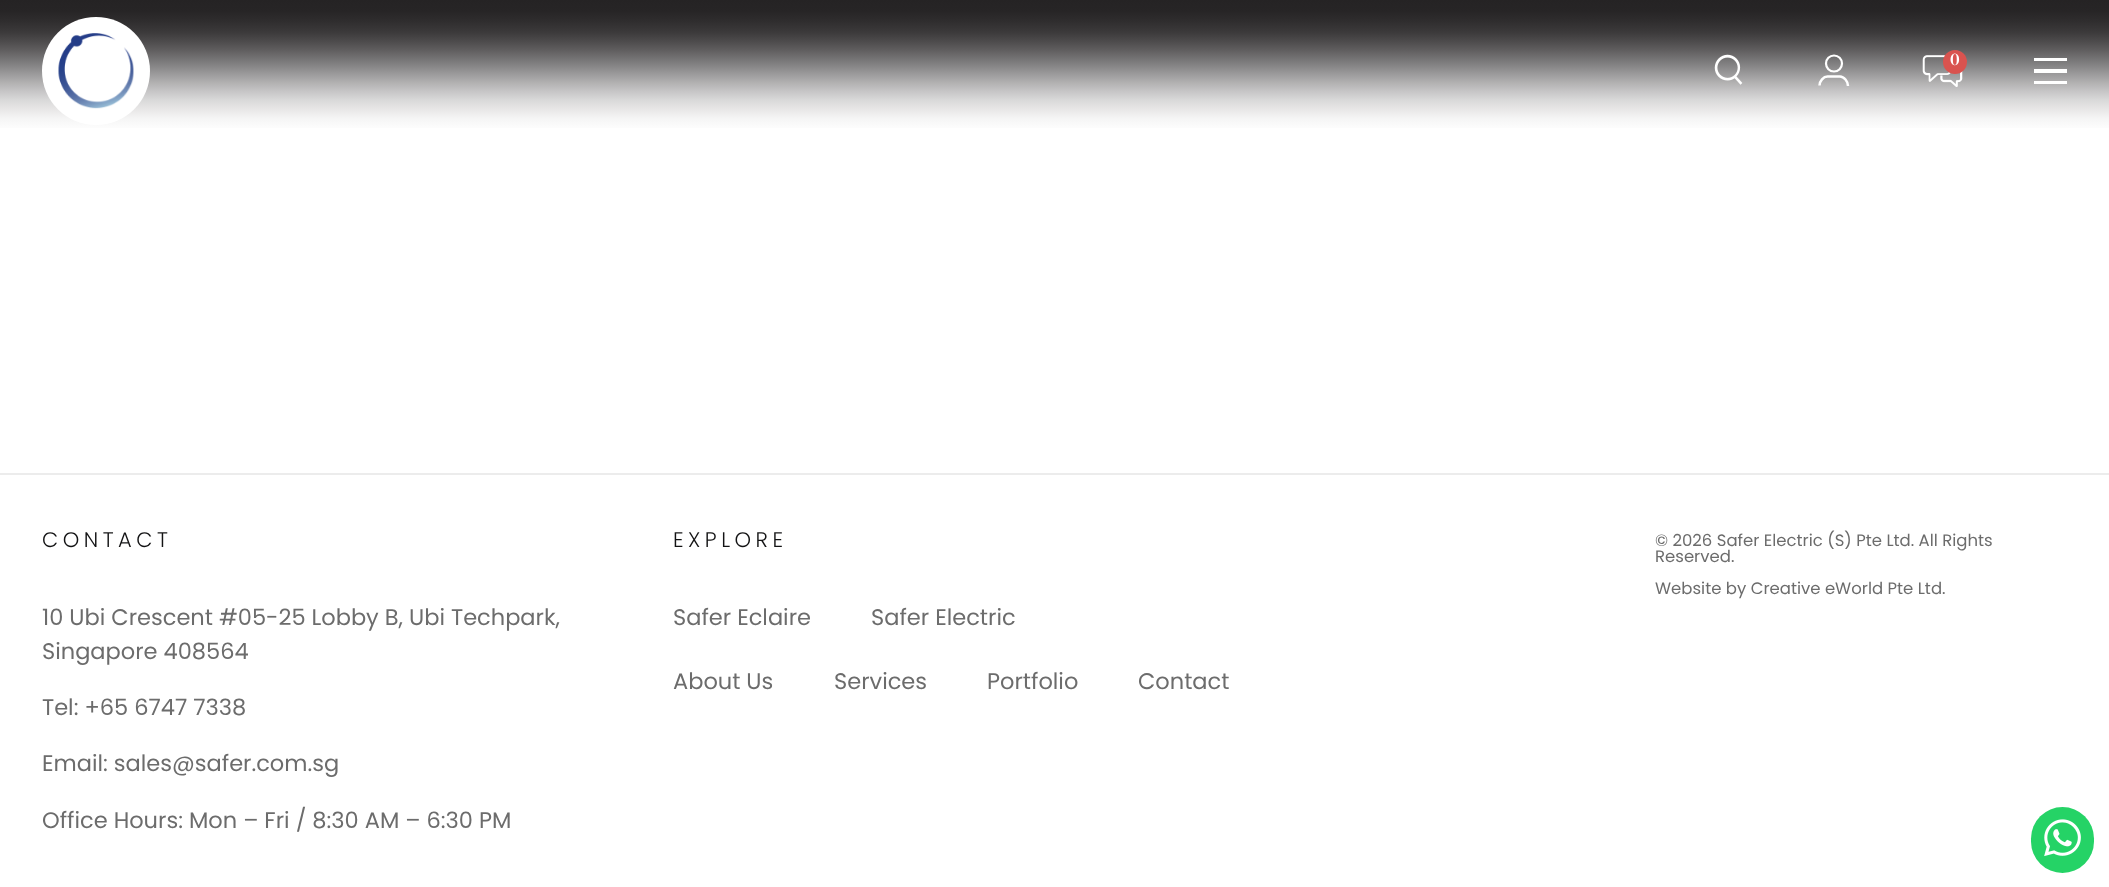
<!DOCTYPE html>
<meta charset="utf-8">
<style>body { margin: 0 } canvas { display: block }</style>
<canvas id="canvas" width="2109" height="887"></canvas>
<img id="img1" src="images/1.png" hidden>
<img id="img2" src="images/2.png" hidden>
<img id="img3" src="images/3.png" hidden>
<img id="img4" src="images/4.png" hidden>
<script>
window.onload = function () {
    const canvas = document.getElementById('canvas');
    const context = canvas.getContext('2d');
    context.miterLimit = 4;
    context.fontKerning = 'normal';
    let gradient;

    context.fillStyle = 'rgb(255, 255, 255)';
    context.fillRect(0, 0, 2109, 887);
    gradient = context.createLinearGradient(1055, 0, 1055, 141);
    gradient.addColorStop(0, 'rgb(37, 35, 36)');
    gradient.addColorStop(0.08, 'rgb(39, 37, 38)');
    gradient.addColorStop(0.15, 'rgb(47, 45, 46)');
    gradient.addColorStop(0.23, 'rgb(60, 58, 59)');
    gradient.addColorStop(0.29, 'rgb(76, 74, 75)');
    gradient.addColorStop(0.35, 'rgb(94, 92, 93)');
    gradient.addColorStop(0.41, 'rgb(114, 113, 114)');
    gradient.addColorStop(0.47, 'rgb(135, 134, 135)');
    gradient.addColorStop(0.53, 'rgb(157, 156, 157)');
    gradient.addColorStop(0.59, 'rgb(179, 178, 178)');
    gradient.addColorStop(0.65, 'rgb(199, 198, 199)');
    gradient.addColorStop(0.71, 'rgb(217, 217, 217)');
    gradient.addColorStop(0.78, 'rgb(233, 232, 232)');
    gradient.addColorStop(0.84, 'rgb(245, 245, 245)');
    gradient.addColorStop(0.92, 'rgb(254, 254, 254)');
    gradient.addColorStop(1, 'rgb(255, 255, 255)');
    context.fillStyle = gradient;
    context.fillRect(0, 0, 2109, 128);
    context.fillStyle = 'rgb(255, 255, 255)';
    context.beginPath();
    context.arc(96, 71, 54, 0, 2 * Math.PI);
    context.fill();
    context.drawImage(document.getElementById('img1'), 58, 33, 76, 76);
    context.drawImage(document.getElementById('img2'), 1714, 54, 29, 31);
    context.beginPath();
    context.moveTo(1819.5, 85.5);
    context.bezierCurveTo(1819.5, 81, 1823.5, 76.5, 1827.5, 76.5);
    context.lineTo(1840, 76.5);
    context.bezierCurveTo(1844, 76.5, 1848, 81.5, 1848, 86);
    context.strokeStyle = 'rgb(255, 255, 255)';
    context.lineWidth = 2.5;
    context.stroke();
    context.beginPath();
    context.arc(1834, 63.5, 8, 0, 2 * Math.PI);
    context.lineWidth = 2.2;
    context.stroke();
    context.drawImage(document.getElementById('img3'), 1922, 55, 41, 32);
    context.fillStyle = 'rgb(217, 83, 79)';
    context.beginPath();
    context.arc(1955, 62, 12, 0, 2 * Math.PI);
    context.fill();
    context.fillStyle = 'rgb(255, 255, 255)';
    context.fillRect(2034, 58, 33, 3);
    context.fillRect(2034, 69, 33, 4);
    context.fillRect(2034, 81, 33, 3);
    context.fillStyle = 'rgb(236, 236, 236)';
    context.fillRect(0, 473, 2109, 2);
    context.fillStyle = 'rgb(37, 211, 102)';
    context.beginPath();
    context.roundRect(2031, 807, 63, 66, 31.5);
    context.fill();
    context.drawImage(document.getElementById('img4'), 2044, 819, 37, 38);
    context.font = '600 15px Bodoni Moda';
    context.fillStyle = 'rgb(255, 255, 255)';
    context.fillText('0', 1950, 65);
    context.letterSpacing = '4.5px';
    context.font = '300 21px Poppins';
    context.fillStyle = 'rgb(19, 19, 20)';
    context.fillText('CONTACT', 42, 547);
    context.letterSpacing = '0px';
    context.font = '22.5px Poppins';
    context.fillStyle = 'rgb(108, 108, 108)';
    context.fillText('10 Ubi Crescent #05-25 Lobby B, Ubi Techpark,', 42, 625);
    context.fillText('Singapore 408564', 42, 659);
    context.fillText('Tel: +65 6747 7338', 42, 715);
    context.fillText('Email: sales@safer.com.sg', 42, 771);
    context.fillText('Office Hours: Mon – Fri / 8:30 AM – 6:30 PM', 42, 828);
    context.letterSpacing = '4.5px';
    context.font = '300 21px Poppins';
    context.fillStyle = 'rgb(19, 19, 20)';
    context.fillText('EXPLORE', 673, 547);
    context.letterSpacing = '0px';
    context.font = '22.5px Poppins';
    context.fillStyle = 'rgb(108, 108, 108)';
    context.fillText('Safer Eclaire', 673, 625);
    context.fillText('Safer Electric', 871, 625);
    context.fillText('About Us', 673, 689);
    context.fillText('Services', 834, 689);
    context.fillText('Portfolio', 987, 689);
    context.fillText('Contact', 1138, 689);
    context.font = '16.5px Poppins';
    context.fillText('© 2026 Safer Electric (S) Pte Ltd. All Rights', 1655, 546);
    context.fillText('Reserved.', 1655, 562);
    context.fillText('Website by Creative eWorld Pte Ltd.', 1655, 594);
};
</script>
